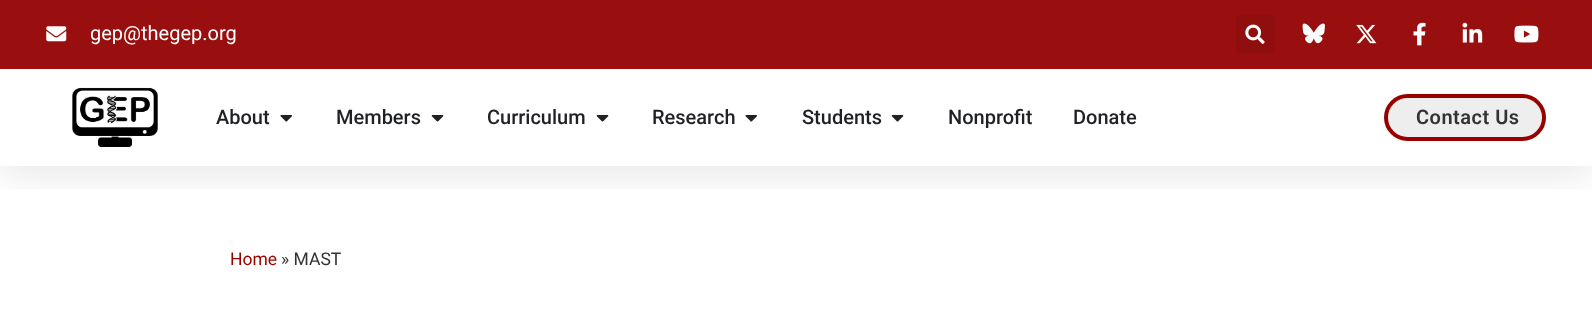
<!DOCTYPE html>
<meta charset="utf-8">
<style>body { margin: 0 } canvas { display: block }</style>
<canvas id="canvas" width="1592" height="334"></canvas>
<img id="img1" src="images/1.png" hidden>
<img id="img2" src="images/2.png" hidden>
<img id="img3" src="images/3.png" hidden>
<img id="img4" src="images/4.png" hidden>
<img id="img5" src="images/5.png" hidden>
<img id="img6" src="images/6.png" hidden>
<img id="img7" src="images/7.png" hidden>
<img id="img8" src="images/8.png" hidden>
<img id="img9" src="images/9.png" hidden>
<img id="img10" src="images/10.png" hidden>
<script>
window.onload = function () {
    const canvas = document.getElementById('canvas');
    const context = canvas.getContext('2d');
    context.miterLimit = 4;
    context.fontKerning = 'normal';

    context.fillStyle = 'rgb(255, 255, 255)';
    context.fillRect(0, 0, 1592, 334);
    context.save();
    context.beginPath();
    context.rect(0, 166, 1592, 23);
    context.clip();
    context.fillStyle = 'rgba(0, 0, 0, 0.1)';
    context.filter = 'blur(19px)';
    context.beginPath();
    context.rect(0, 6, 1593, 167);
    context.fill();
    context.filter = 'none';
    context.restore();
    context.fillStyle = 'rgb(153, 15, 15)';
    context.fillRect(0, 0, 1592, 69);
    context.drawImage(document.getElementById('img1'), 46, 26, 21, 16);
    context.fillStyle = 'rgb(145, 14, 14)';
    context.beginPath();
    context.roundRect(1236, 15, 39, 39, 4);
    context.fill();
    context.drawImage(document.getElementById('img2'), 1245, 24, 20, 20);
    context.drawImage(document.getElementById('img3'), 1302, 23, 23, 21);
    context.drawImage(document.getElementById('img4'), 1356, 24, 21, 20);
    context.drawImage(document.getElementById('img5'), 1413, 22, 13, 24);
    context.drawImage(document.getElementById('img6'), 1462, 22, 21, 21);
    context.drawImage(document.getElementById('img7'), 1514, 25, 25, 18);
    context.drawImage(document.getElementById('img8'), 72, 87, 86, 60);
    context.drawImage(document.getElementById('img9'), 280, 115, 12, 7);
    context.drawImage(document.getElementById('img10'), 431, 115, 13, 7);
    context.drawImage(document.getElementById('img10'), 596, 115, 13, 7);
    context.drawImage(document.getElementById('img9'), 745, 115, 12, 7);
    context.drawImage(document.getElementById('img10'), 891, 115, 13, 7);
    context.fillStyle = 'rgb(238, 238, 238)';
    context.beginPath();
    context.roundRect(1386, 96, 158, 43, 21.5);
    context.fill();
    context.strokeStyle = 'rgb(153, 0, 0)';
    context.lineWidth = 4;
    context.stroke();
    context.font = '20px Roboto';
    context.fillStyle = 'rgb(255, 255, 255)';
    context.fillText('gep@thegep.org', 90, 40);
    context.font = '500 20px Roboto';
    context.fillStyle = 'rgb(31, 33, 36)';
    context.fillText('About', 216, 124);
    context.fillText('Members', 336, 124);
    context.fillText('Curriculum', 487, 124);
    context.fillText('Research', 652, 124);
    context.fillText('Students', 802, 124);
    context.fillText('Nonprofit', 948, 124);
    context.fillText('Donate', 1073, 124);
    context.letterSpacing = '0.5px';
    context.font = '600 20px Roboto';
    context.fillStyle = 'rgb(51, 51, 51)';
    context.fillText('Contact Us', 1416, 124);
    context.letterSpacing = '0px';
    context.font = '17.5px Roboto';
    context.fillStyle = 'rgb(153, 0, 0)';
    context.fillText('Home', 230, 265);
    context.fillStyle = 'rgb(51, 51, 51)';
    context.fillText('» MAST', 281, 265);
};
</script>
